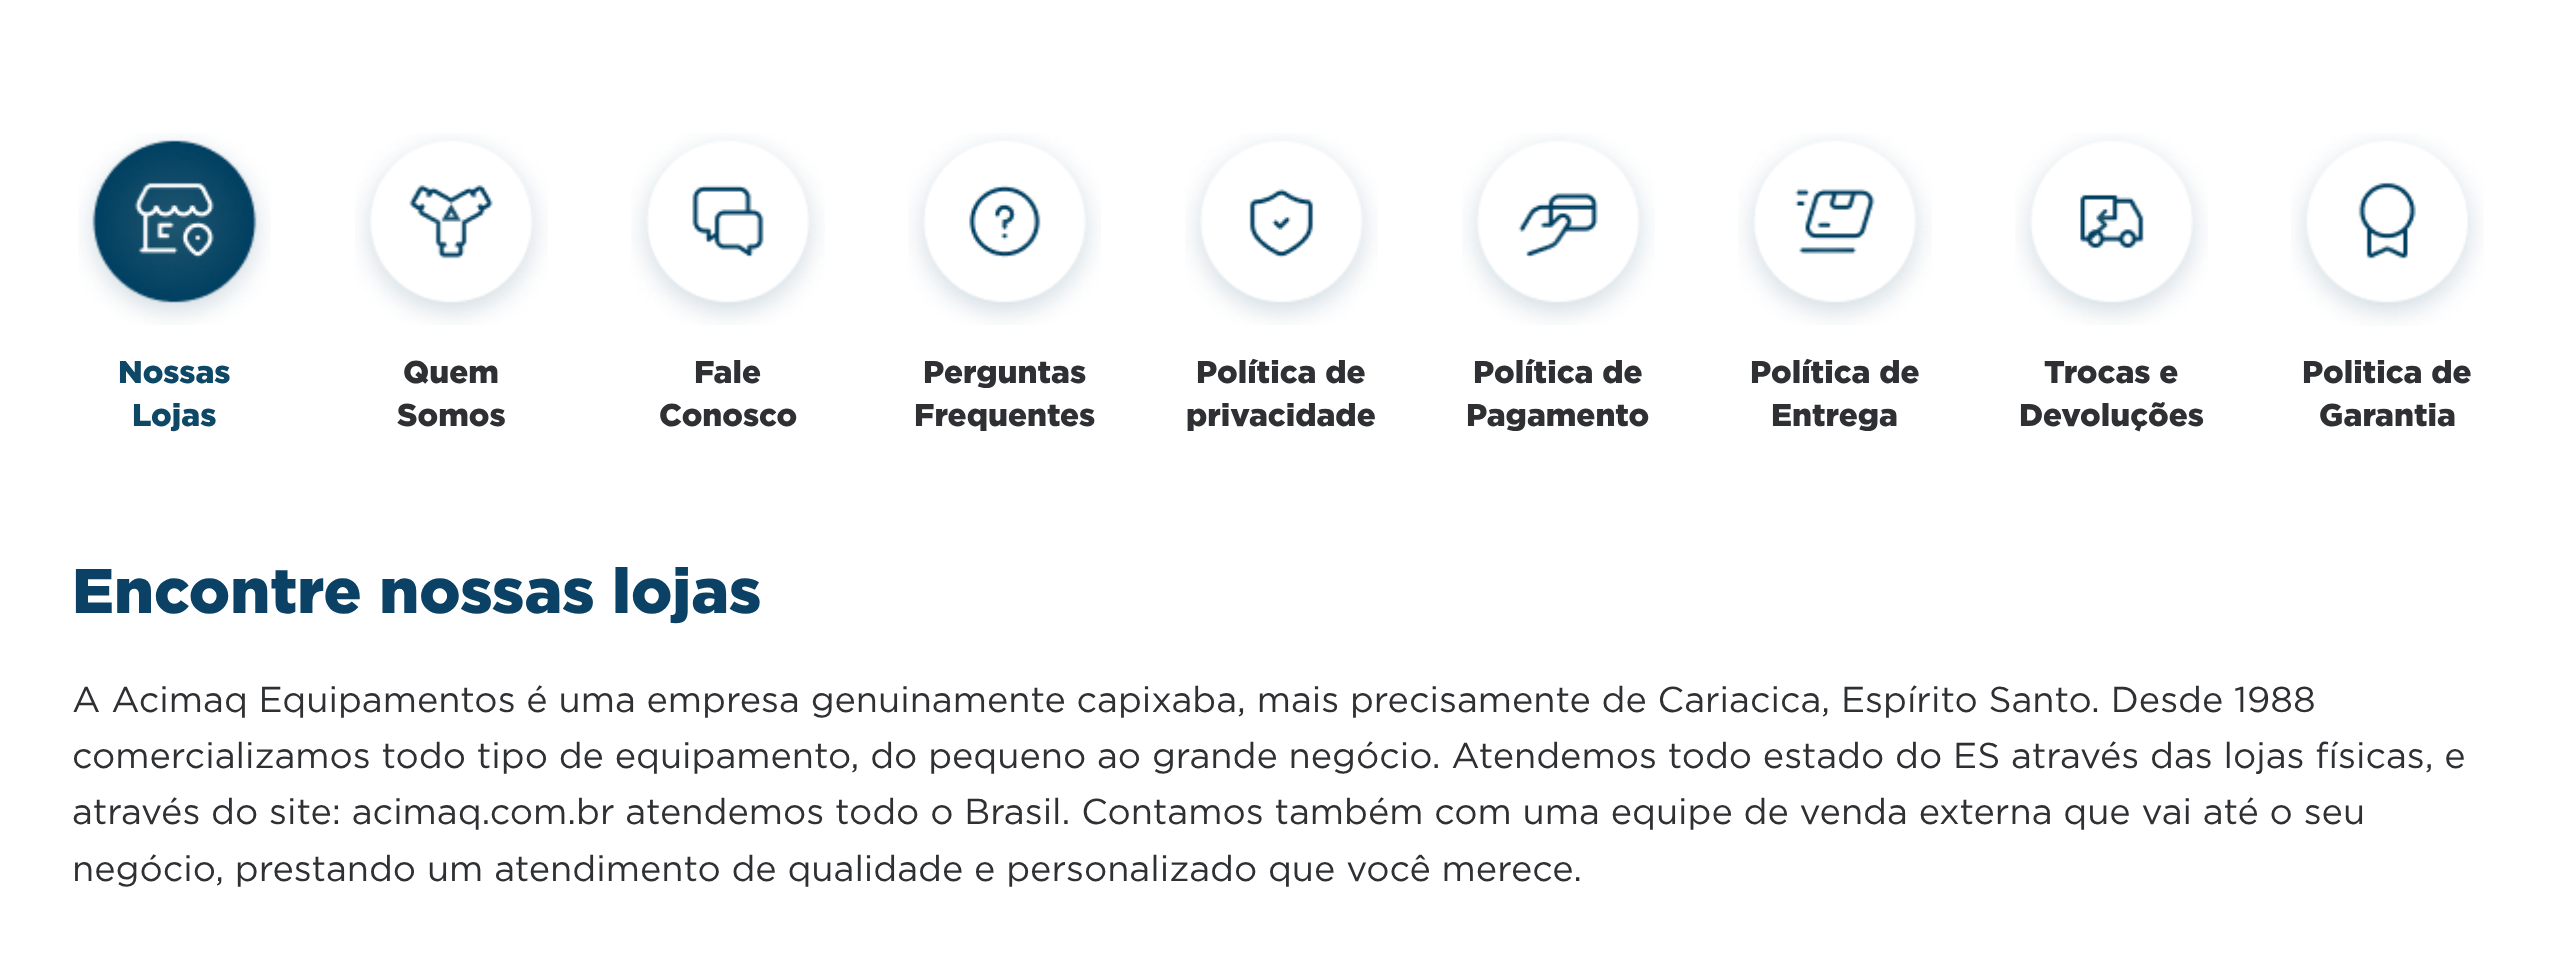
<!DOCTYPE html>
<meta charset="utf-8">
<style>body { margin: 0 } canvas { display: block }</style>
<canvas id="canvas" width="2559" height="959"></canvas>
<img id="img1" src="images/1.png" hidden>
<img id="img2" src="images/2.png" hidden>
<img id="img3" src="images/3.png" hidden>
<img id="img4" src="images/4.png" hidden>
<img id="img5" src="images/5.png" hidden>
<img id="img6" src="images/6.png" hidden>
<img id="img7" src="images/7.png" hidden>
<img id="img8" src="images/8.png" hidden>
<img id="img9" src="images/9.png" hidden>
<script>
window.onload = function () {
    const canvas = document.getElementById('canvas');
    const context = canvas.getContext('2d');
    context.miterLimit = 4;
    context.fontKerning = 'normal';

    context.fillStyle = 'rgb(255, 255, 255)';
    context.fillRect(0, 0, 2559, 959);
    context.drawImage(document.getElementById('img1'), 78, 133, 193, 192);
    context.drawImage(document.getElementById('img2'), 355, 133, 193, 192);
    context.drawImage(document.getElementById('img3'), 631, 133, 194, 192);
    context.drawImage(document.getElementById('img4'), 908, 133, 193, 192);
    context.drawImage(document.getElementById('img5'), 1185, 133, 193, 192);
    context.drawImage(document.getElementById('img6'), 1462, 133, 193, 192);
    context.drawImage(document.getElementById('img7'), 1738, 133, 194, 192);
    context.drawImage(document.getElementById('img8'), 2015, 133, 193, 192);
    context.drawImage(document.getElementById('img9'), 2291, 133, 193, 193);
    context.font = '900 31.5px Gotham';
    context.fillStyle = 'rgb(13, 72, 102)';
    context.fillText('Nossas', 118, 383);
    context.fillText('Lojas', 132, 426);
    context.fillStyle = 'rgb(47, 48, 51)';
    context.fillText('Quem', 403, 383);
    context.fillText('Somos', 397, 426);
    context.fillText('Fale', 694, 383);
    context.fillText('Conosco', 659, 426);
    context.fillText('Perguntas', 923, 383);
    context.fillText('Frequentes', 914, 426);
    context.fillText('Política de', 1196, 383);
    context.fillText('privacidade', 1186, 426);
    context.fillText('Política de', 1473, 383);
    context.fillText('Pagamento', 1466, 426);
    context.fillText('Política de', 1750, 383);
    context.fillText('Entrega', 1771, 426);
    context.fillText('Trocas e', 2044, 383);
    context.fillText('Devoluções', 2019, 426);
    context.fillText('Politica de', 2302, 383);
    context.fillText('Garantia', 2319, 426);
    context.font = '900 63px Gotham';
    context.fillStyle = 'rgb(10, 65, 101)';
    context.fillText('Encontre nossas lojas', 72, 613);
    context.font = '36px Gotham';
    context.fillStyle = 'rgb(47, 48, 51)';
    context.fillText('A Acimaq Equipamentos é uma empresa genuinamente capixaba, mais precisamente de Cariacica, Espírito Santo. Desde 1988', 72, 712);
    context.fillText('comercializamos todo tipo de equipamento, do pequeno ao grande negócio. Atendemos todo estado do ES através das lojas físicas, e', 72, 768);
    context.fillText('através do site: acimaq.com.br atendemos todo o Brasil. Contamos também com uma equipe de venda externa que vai até o seu', 72, 824);
    context.fillText('negócio, prestando um atendimento de qualidade e personalizado que você merece.', 72, 881);
};
</script>
